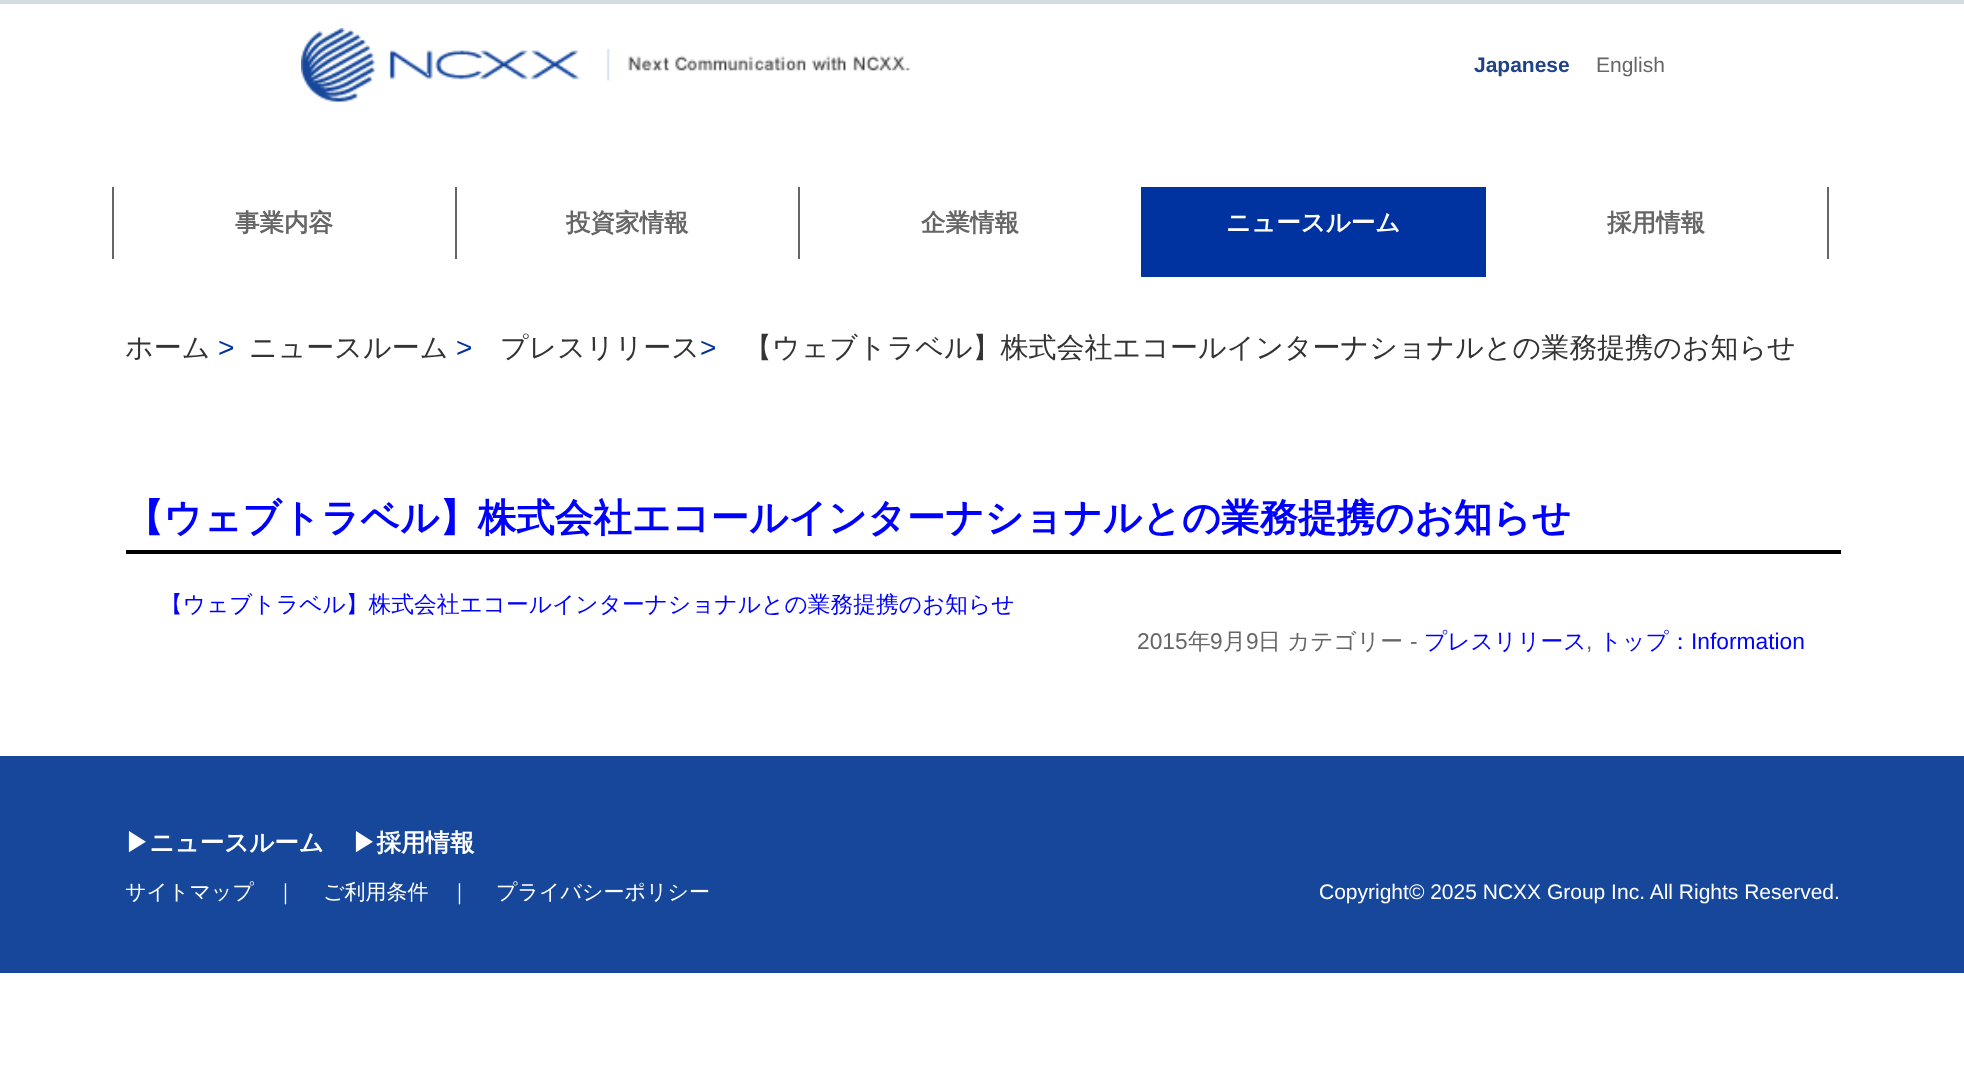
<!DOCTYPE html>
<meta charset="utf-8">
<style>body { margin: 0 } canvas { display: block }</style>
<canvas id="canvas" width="1964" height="1070"></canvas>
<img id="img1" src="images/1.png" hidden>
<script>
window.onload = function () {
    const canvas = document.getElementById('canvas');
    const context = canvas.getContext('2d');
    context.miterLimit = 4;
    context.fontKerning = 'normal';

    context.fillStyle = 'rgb(255, 255, 255)';
    context.fillRect(0, 0, 1964, 1070);
    context.fillStyle = 'rgb(210, 221, 223)';
    context.fillRect(0, 0, 1964, 4);
    context.drawImage(document.getElementById('img1'), 301, 28, 609, 74);
    context.fillStyle = 'rgb(102, 102, 102)';
    context.fillRect(455, 187, 2, 72);
    context.fillRect(112, 187, 2, 72);
    context.fillRect(798, 187, 2, 72);
    context.fillStyle = 'rgb(0, 51, 160)';
    context.fillRect(1141, 187, 345, 90);
    context.fillStyle = 'rgb(102, 102, 102)';
    context.fillRect(1827, 187, 2, 72);
    context.fillStyle = 'rgb(0, 0, 0)';
    context.fillRect(126, 550, 1715, 4);
    context.fillStyle = 'rgb(22, 71, 154)';
    context.fillRect(0, 756, 1964, 217);
    context.font = 'bold 21px Liberation Sans';
    context.fillStyle = 'rgb(32, 66, 137)';
    context.fillText('Japanese', 1474, 72);
    context.font = '21px Liberation Sans';
    context.fillStyle = 'rgb(102, 102, 102)';
    context.fillText('English', 1596, 72);
    context.font = 'bold 24.5px WenQuanYi Zen Hei';
    context.fillText('事業内容', 235, 231);
    context.fillText('投資家情報', 566, 231);
    context.fillText('企業情報', 921, 231);
    context.fillStyle = 'rgb(255, 255, 255)';
    context.fillText('ニュースルーム', 1226, 231);
    context.fillStyle = 'rgb(102, 102, 102)';
    context.fillText('採用情報', 1607, 231);
    context.font = '500 28px WenQuanYi Zen Hei';
    context.fillStyle = 'rgb(51, 51, 51)';
    context.fillText('ホーム', 125, 357);
    context.font = '28px Liberation Sans';
    context.fillStyle = 'rgb(0, 51, 160)';
    context.fillText('>', 218, 357);
    context.font = '500 28px WenQuanYi Zen Hei';
    context.fillStyle = 'rgb(51, 51, 51)';
    context.fillText('ニュースルーム', 249, 357);
    context.font = '28px Liberation Sans';
    context.fillStyle = 'rgb(0, 51, 160)';
    context.fillText('>', 456, 357);
    context.font = '500 28px WenQuanYi Zen Hei';
    context.fillStyle = 'rgb(51, 51, 51)';
    context.fillText('プレスリリース', 500, 357);
    context.font = '28px Liberation Sans';
    context.fillStyle = 'rgb(0, 51, 160)';
    context.fillText('>', 700, 357);
    context.font = '500 28px WenQuanYi Zen Hei';
    context.fillStyle = 'rgb(51, 51, 51)';
    context.fillText('【ウェブトラベル】株式会社エコールインターナショナルとの業務提携のお知らせ', 744, 357);
    context.font = 'bold 38.5px WenQuanYi Zen Hei';
    context.fillStyle = 'rgb(0, 0, 255)';
    context.fillText('【ウェブトラベル】株式会社エコールインターナショナルとの業務提携のお知らせ', 125, 531);
    context.font = '500 22.75px WenQuanYi Zen Hei';
    context.fillText('【ウェブトラベル】株式会社エコールインターナショナルとの業務提携のお知らせ', 160, 612);
    context.font = '22.75px Liberation Sans';
    context.fillStyle = 'rgb(102, 102, 102)';
    context.fillText('2015', 1137, 649);
    context.font = '500 22.75px WenQuanYi Zen Hei';
    context.fillText('年', 1188, 649);
    context.font = '22.75px Liberation Sans';
    context.fillText('9', 1210, 649);
    context.font = '500 22.75px WenQuanYi Zen Hei';
    context.fillText('月', 1223, 649);
    context.font = '22.75px Liberation Sans';
    context.fillText('9', 1246, 649);
    context.font = '500 22.75px WenQuanYi Zen Hei';
    context.fillText('日', 1258, 649);
    context.fillText('カテゴリー', 1287, 649);
    context.font = '22.75px Liberation Sans';
    context.fillText('-', 1410, 649);
    context.font = '500 22.75px WenQuanYi Zen Hei';
    context.fillStyle = 'rgb(0, 0, 255)';
    context.fillText('プレスリリース', 1424, 649);
    context.fillText('トップ：', 1599, 649);
    context.font = '22.75px Liberation Sans';
    context.fillText('Information', 1691, 649);
    context.fillStyle = 'rgb(102, 102, 102)';
    context.fillText(',', 1586, 649);
    context.font = 'bold 24.5px WenQuanYi Zen Hei';
    context.fillStyle = 'rgb(255, 255, 255)';
    context.fillText('▶ニュースルーム', 125, 851);
    context.fillText('▶採用情報', 352, 851);
    context.font = '500 21px WenQuanYi Zen Hei';
    context.fillText('サイトマップ', 125, 899);
    context.fillText('｜', 275, 899);
    context.fillText('ご利用条件', 323, 899);
    context.fillText('｜', 449, 899);
    context.fillText('プライバシーポリシー', 496, 899);
    context.font = '21px Liberation Sans';
    context.fillText('Copyright© 2025 NCXX Group Inc. All Rights Reserved.', 1319, 899);
};
</script>
